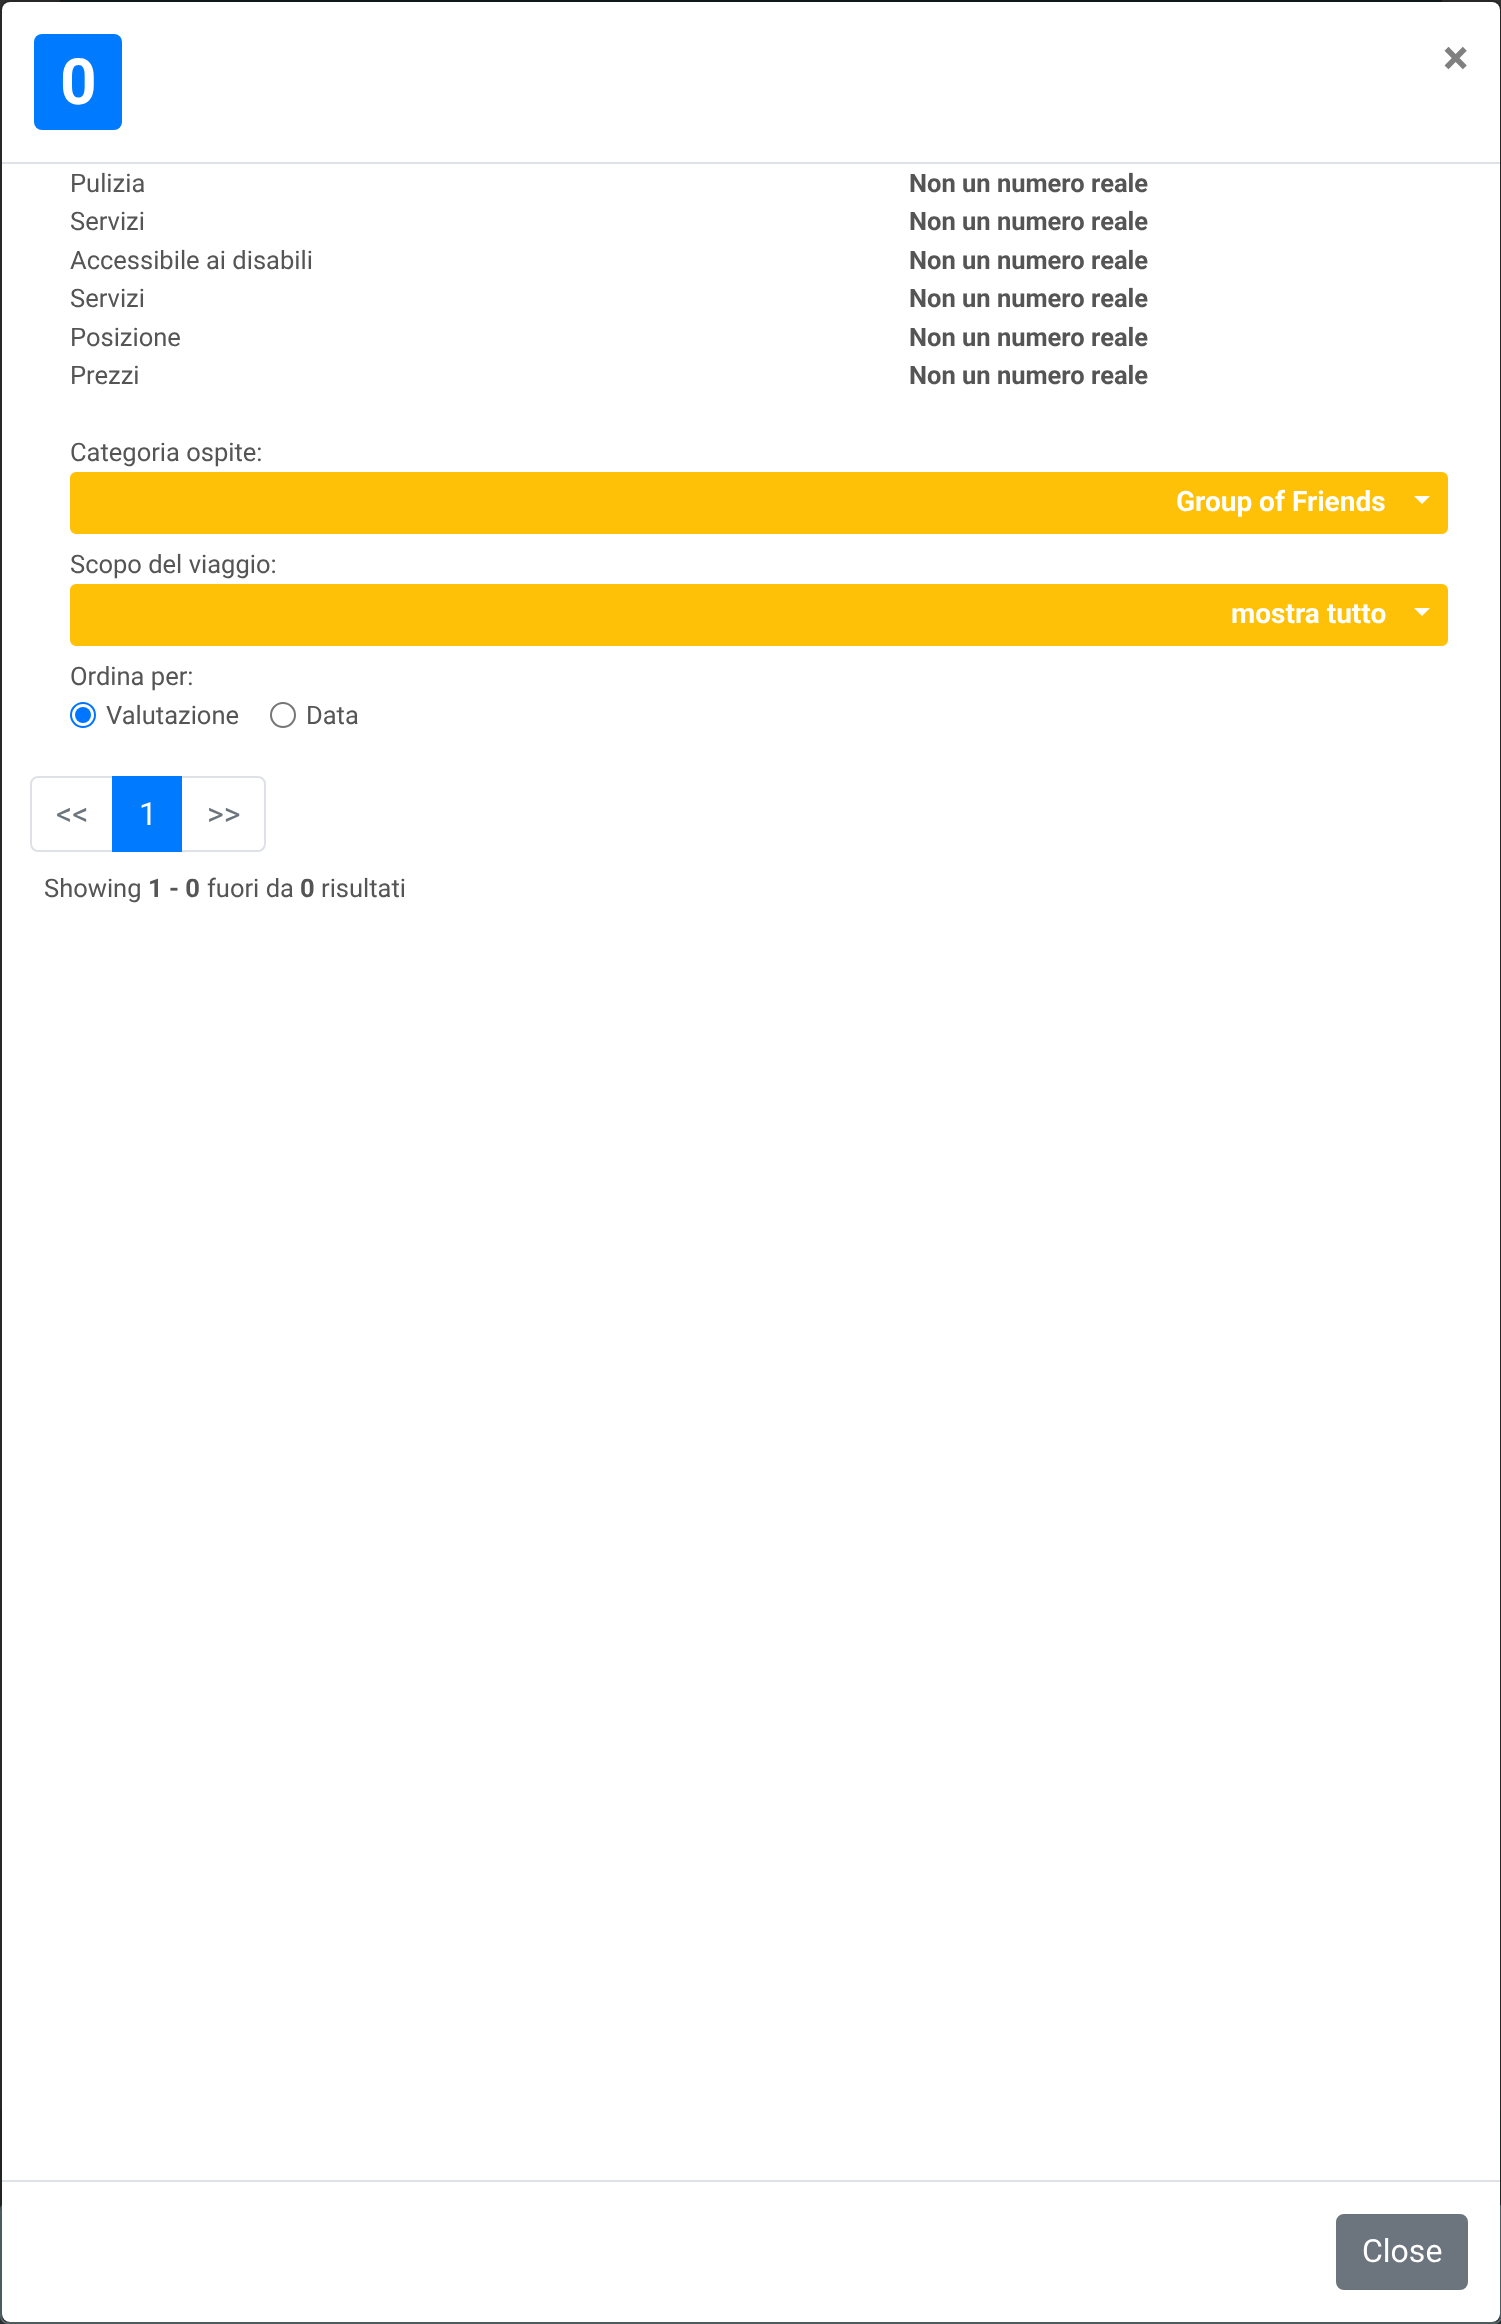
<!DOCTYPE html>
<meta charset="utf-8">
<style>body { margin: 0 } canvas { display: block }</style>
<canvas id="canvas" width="1501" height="2324"></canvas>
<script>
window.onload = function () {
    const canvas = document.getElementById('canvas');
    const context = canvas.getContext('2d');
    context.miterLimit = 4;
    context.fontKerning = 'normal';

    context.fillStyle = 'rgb(49, 49, 49)';
    context.fillRect(0, 0, 1501, 2324);
    context.strokeStyle = 'rgb(20, 31, 32)';
    context.lineWidth = 2;
    context.strokeRect(61, 1, 1380, 160);
    context.fillStyle = 'rgb(42, 45, 47)';
    context.fillRect(0, 2110, 1501, 214);
    context.fillStyle = 'rgb(25, 25, 25)';
    context.beginPath();
    context.roundRect(1, 2203, 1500, 120, 7);
    context.fill();
    context.strokeStyle = 'rgb(95, 115, 118)';
    context.stroke();
    context.fillStyle = 'rgb(255, 255, 255)';
    context.beginPath();
    context.roundRect(2, 2, 1498, 2320, 8);
    context.fill();
    context.beginPath();
    context.roundRect(1, 1, 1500, 2322, 9);
    context.strokeStyle = 'rgba(0, 0, 0, 0.2)';
    context.stroke();
    context.fillStyle = 'rgb(222, 226, 230)';
    context.fillRect(2, 162, 1498, 2);
    context.fillStyle = 'rgb(0, 123, 255)';
    context.beginPath();
    context.roundRect(34, 34, 88, 96, 8);
    context.fill();
    context.fillStyle = 'rgb(255, 193, 7)';
    context.beginPath();
    context.roundRect(71, 473, 1376, 60, 5);
    context.fill();
    context.strokeStyle = 'rgb(255, 193, 7)';
    context.stroke();
    context.fillStyle = 'rgb(255, 255, 255)';
    context.beginPath();
    context.moveTo(1414, 496);
    context.lineTo(1430, 496);
    context.lineTo(1422, 504);
    context.closePath();
    context.fill();
    context.fillStyle = 'rgb(255, 193, 7)';
    context.beginPath();
    context.roundRect(71, 585, 1376, 60, 5);
    context.fill();
    context.stroke();
    context.fillStyle = 'rgb(255, 255, 255)';
    context.beginPath();
    context.moveTo(1414, 608);
    context.lineTo(1430, 608);
    context.lineTo(1422, 616);
    context.closePath();
    context.fill();
    context.beginPath();
    context.arc(83, 715, 12, 0, 2 * Math.PI);
    context.strokeStyle = 'rgb(0, 117, 255)';
    context.stroke();
    context.fillStyle = 'rgb(0, 117, 255)';
    context.beginPath();
    context.arc(83, 715, 8, 0, 2 * Math.PI);
    context.fill();
    context.beginPath();
    context.arc(283, 715, 12, 0, 2 * Math.PI);
    context.strokeStyle = 'rgb(118, 118, 118)';
    context.stroke();
    context.beginPath();
    context.roundRect(31, 777, 82, 74, [7, 0, 0, 7]);
    context.strokeStyle = 'rgb(222, 226, 230)';
    context.stroke();
    context.beginPath();
    context.roundRect(181, 777, 84, 74, [0, 7, 7, 0]);
    context.stroke();
    context.fillStyle = 'rgb(0, 123, 255)';
    context.fillRect(112, 776, 70, 76);
    context.fillStyle = 'rgb(222, 226, 230)';
    context.fillRect(2, 2180, 1498, 2);
    context.fillStyle = 'rgb(108, 117, 125)';
    context.beginPath();
    context.roundRect(1337, 2215, 130, 74, 7);
    context.fill();
    context.strokeStyle = 'rgb(108, 117, 125)';
    context.stroke();
    context.font = 'bold 64px Roboto';
    context.fillStyle = 'rgb(255, 255, 255)';
    context.fillText('0', 60, 104);
    context.font = 'bold 48px Roboto';
    context.fillStyle = 'rgb(128, 128, 128)';
    context.fillText('×', 1443, 74);
    context.font = '25.5px Roboto';
    context.fillStyle = 'rgb(85, 85, 85)';
    context.fillText('Pulizia', 70, 192);
    context.font = 'bold 25.5px Roboto';
    context.fillText('Non un numero reale', 909, 192);
    context.font = '25.5px Roboto';
    context.fillText('Servizi', 70, 230);
    context.font = 'bold 25.5px Roboto';
    context.fillText('Non un numero reale', 909, 230);
    context.font = '25.5px Roboto';
    context.fillText('Accessibile ai disabili', 70, 269);
    context.font = 'bold 25.5px Roboto';
    context.fillText('Non un numero reale', 909, 269);
    context.font = '25.5px Roboto';
    context.fillText('Servizi', 70, 307);
    context.font = 'bold 25.5px Roboto';
    context.fillText('Non un numero reale', 909, 307);
    context.font = '25.5px Roboto';
    context.fillText('Posizione', 70, 346);
    context.font = 'bold 25.5px Roboto';
    context.fillText('Non un numero reale', 909, 346);
    context.font = '25.5px Roboto';
    context.fillText('Prezzi', 70, 384);
    context.font = 'bold 25.5px Roboto';
    context.fillText('Non un numero reale', 909, 384);
    context.font = '25.5px Roboto';
    context.fillText('Categoria ospite:', 70, 461);
    context.font = 'bold 28px Roboto';
    context.fillStyle = 'rgb(255, 255, 255)';
    context.fillText('Group of Friends', 1176, 511);
    context.font = '25.5px Roboto';
    context.fillStyle = 'rgb(85, 85, 85)';
    context.fillText('Scopo del viaggio:', 70, 573);
    context.font = 'bold 28px Roboto';
    context.fillStyle = 'rgb(255, 255, 255)';
    context.fillText('mostra tutto', 1231, 623);
    context.font = '25.5px Roboto';
    context.fillStyle = 'rgb(85, 85, 85)';
    context.fillText('Ordina per:', 70, 685);
    context.fillText('Valutazione', 106, 724);
    context.fillText('Data', 306, 724);
    context.font = '32px Roboto';
    context.fillStyle = 'rgb(108, 117, 125)';
    context.fillText('<<', 56, 825);
    context.fillStyle = 'rgb(255, 255, 255)';
    context.fillText('1', 139, 825);
    context.fillStyle = 'rgb(108, 117, 125)';
    context.fillText('>>', 207, 825);
    context.font = '25.5px Roboto';
    context.fillStyle = 'rgb(85, 85, 85)';
    context.fillText('Showing', 44, 897);
    context.font = 'bold 25.5px Roboto';
    context.fillText('1 - 0', 148, 897);
    context.font = '25.5px Roboto';
    context.fillText('fuori da', 207, 897);
    context.font = 'bold 25.5px Roboto';
    context.fillText('0', 300, 897);
    context.font = '25.5px Roboto';
    context.fillText('risultati', 321, 897);
    context.font = '32px Roboto';
    context.fillStyle = 'rgb(255, 255, 255)';
    context.fillText('Close', 1362, 2262);
};
</script>
